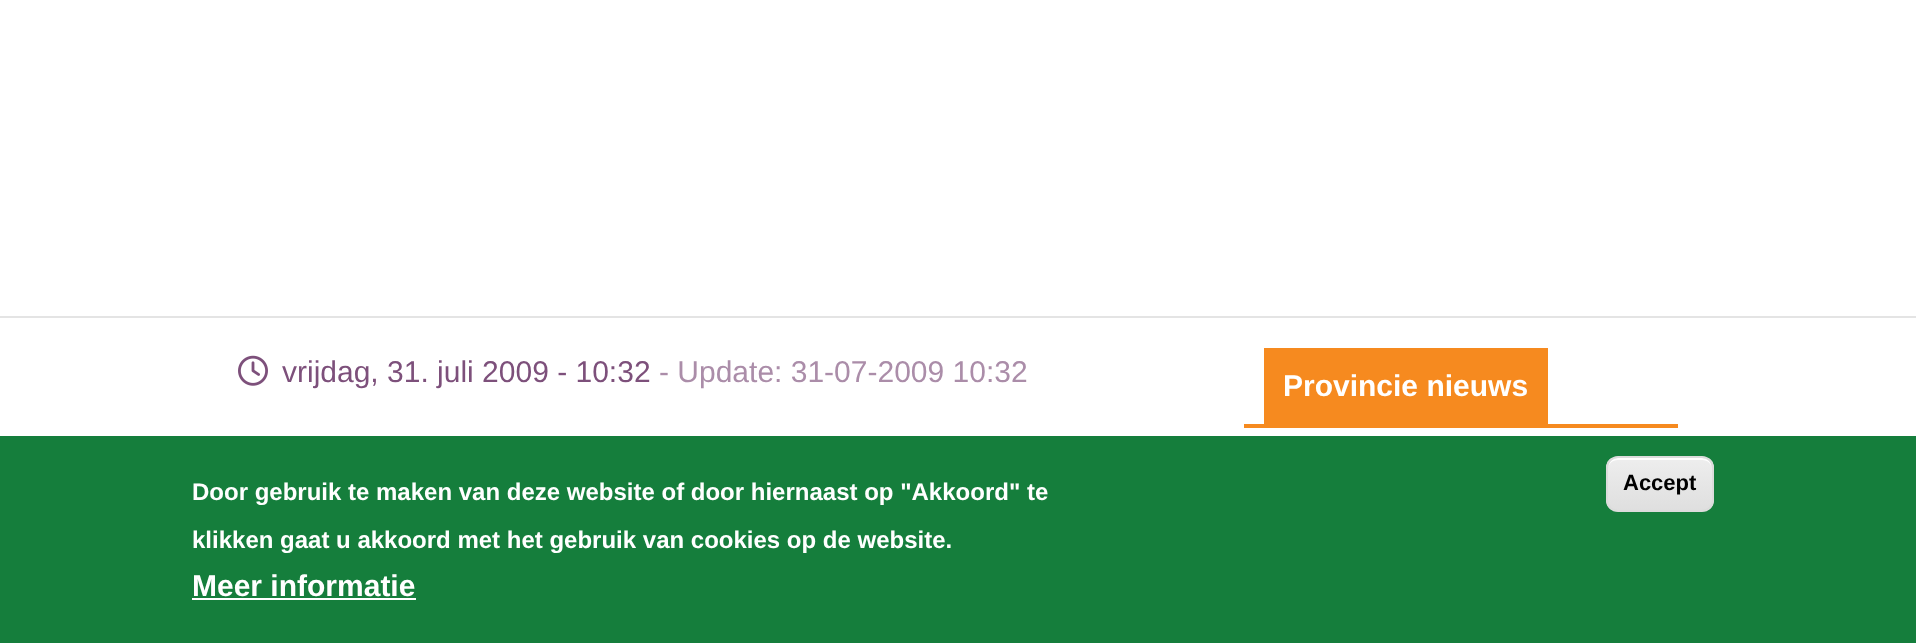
<!DOCTYPE html>
<meta charset="utf-8">
<style>body { margin: 0 } canvas { display: block }</style>
<canvas id="canvas" width="1916" height="643"></canvas>
<img id="img1" src="images/1.png" hidden>
<script>
window.onload = function () {
    const canvas = document.getElementById('canvas');
    const context = canvas.getContext('2d');
    context.miterLimit = 4;
    context.fontKerning = 'normal';
    let gradient;

    context.fillStyle = 'rgb(255, 255, 255)';
    context.fillRect(0, 0, 1916, 643);
    context.fillStyle = 'rgb(228, 228, 228)';
    context.fillRect(0, 316, 1916, 2);
    context.drawImage(document.getElementById('img1'), 238, 355, 30, 31);
    context.fillStyle = 'rgb(246, 138, 31)';
    context.fillRect(1264, 348, 284, 76);
    context.fillRect(1244, 424, 434, 4);
    context.fillStyle = 'rgb(21, 126, 60)';
    context.fillRect(0, 436, 1916, 207);
    context.fillStyle = 'rgb(255, 255, 255)';
    context.fillRect(192, 598, 224, 2);
    context.save();
    context.beginPath();
    context.roundRect(1606, 456, 108, 56, 12);
    context.clip();
    gradient = context.createLinearGradient(1660, 458, 1660, 510);
    gradient.addColorStop(0.05, 'rgb(237, 237, 237)');
    gradient.addColorStop(1, 'rgb(223, 223, 223)');
    context.fillStyle = gradient;
    context.fillRect(1606, 458, 108, 52);
    context.restore();
    context.beginPath();
    context.moveTo(1618, 460);
    context.lineTo(1702, 460);
    context.bezierCurveTo(1708, 460, 1712, 464, 1712, 470);
    context.bezierCurveTo(1712, 455, 1699, 458, 1688, 458);
    context.lineTo(1632, 458);
    context.bezierCurveTo(1621, 458, 1608, 455, 1608, 470);
    context.bezierCurveTo(1608, 464, 1612, 460, 1618, 460);
    context.closePath();
    context.fill();
    context.beginPath();
    context.roundRect(1607, 457, 106, 54, 11);
    context.strokeStyle = 'rgb(220, 220, 220)';
    context.lineWidth = 2;
    context.stroke();
    context.font = '30px Liberation Sans';
    context.fillStyle = 'rgb(125, 80, 123)';
    context.fillText('vrijdag, 31. juli 2009 - 10:32', 282, 382);
    context.fillStyle = 'rgb(171, 141, 169)';
    context.fillText('- Update: 31-07-2009 10:32', 659, 382);
    context.font = 'bold 30px Liberation Sans';
    context.fillStyle = 'rgb(255, 255, 255)';
    context.fillText('Provincie nieuws', 1283, 396);
    context.font = 'bold 24px Liberation Sans';
    context.fillText('Door gebruik te maken van deze website of door hiernaast op "Akkoord" te', 192, 500);
    context.fillText('klikken gaat u akkoord met het gebruik van cookies op de website.', 192, 548);
    context.font = 'bold 30px Liberation Sans';
    context.fillText('Meer informatie', 192, 596);
    context.font = 'bold 22px Liberation Sans';
    context.fillStyle = 'rgb(0, 0, 0)';
    context.fillText('Accept', 1623, 490);
};
</script>
